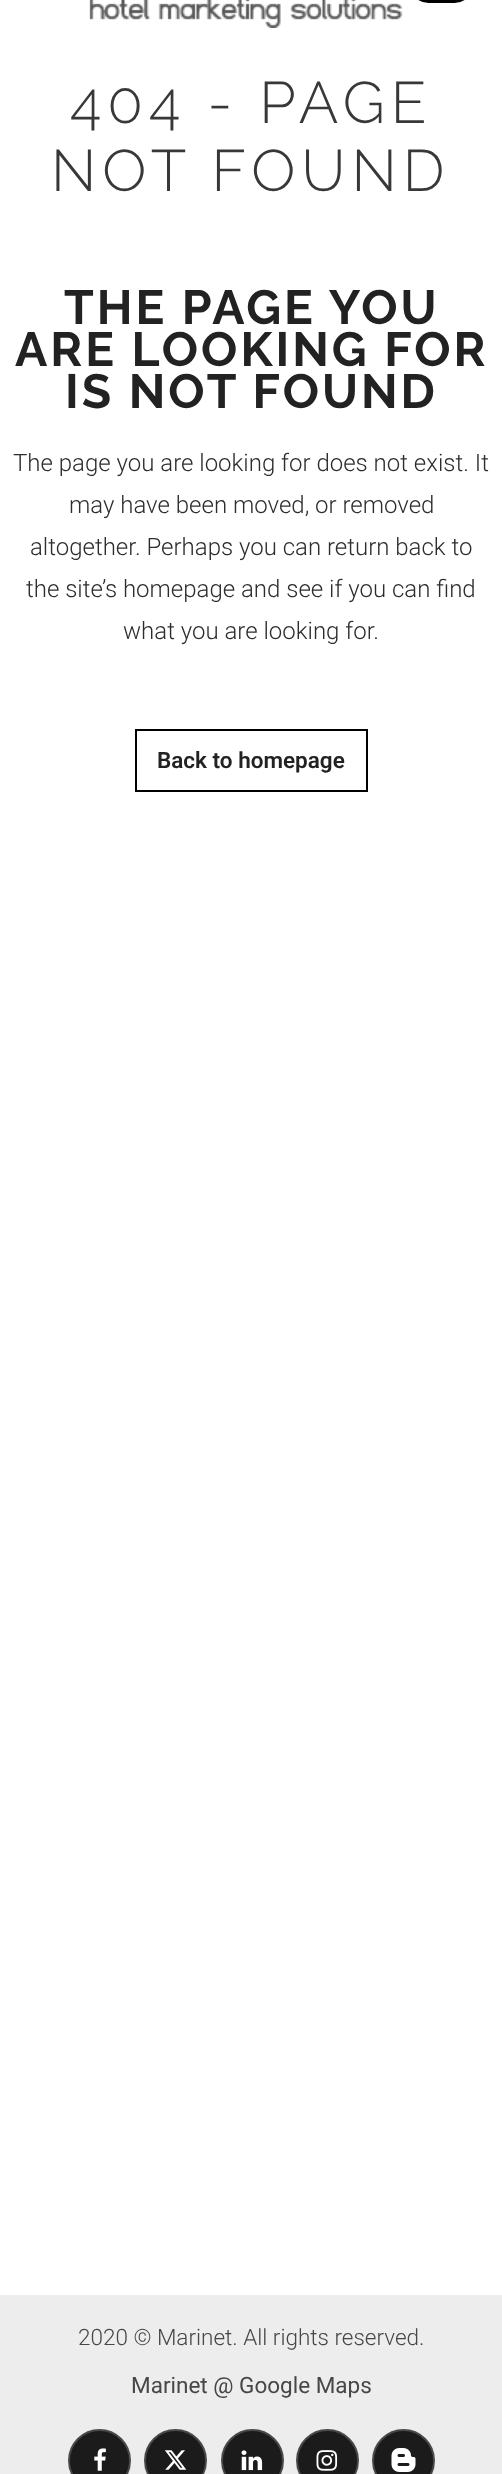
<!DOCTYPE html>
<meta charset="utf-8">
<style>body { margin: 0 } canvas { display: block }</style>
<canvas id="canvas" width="502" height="2474"></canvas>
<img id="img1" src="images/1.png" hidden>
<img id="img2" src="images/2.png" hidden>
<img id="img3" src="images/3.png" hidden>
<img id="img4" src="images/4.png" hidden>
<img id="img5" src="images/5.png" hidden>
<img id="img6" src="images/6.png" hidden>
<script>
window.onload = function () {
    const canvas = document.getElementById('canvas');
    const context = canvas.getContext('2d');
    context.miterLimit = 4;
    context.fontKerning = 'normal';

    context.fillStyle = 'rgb(255, 255, 255)';
    context.fillRect(0, 0, 502, 2474);
    context.fillStyle = 'rgb(0, 0, 0)';
    context.beginPath();
    context.roundRect(411, -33, 61, 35, 30.5);
    context.fill();
    context.strokeStyle = 'rgb(0, 0, 0)';
    context.lineWidth = 2;
    context.stroke();
    context.drawImage(document.getElementById('img1'), 89, 0, 314, 28);
    context.strokeRect(136, 730, 231, 61);
    context.fillStyle = 'rgb(237, 237, 237)';
    context.fillRect(0, 2295, 502, 179);
    context.fillStyle = 'rgb(27, 27, 27)';
    context.beginPath();
    context.arc(99.5, 2460.5, 30.5, 0, 2 * Math.PI);
    context.fill();
    context.strokeStyle = 'rgb(73, 73, 73)';
    context.stroke();
    context.drawImage(document.getElementById('img2'), 94, 2448, 12, 23);
    context.beginPath();
    context.arc(175.5, 2460.5, 30.5, 0, 2 * Math.PI);
    context.fill();
    context.stroke();
    context.drawImage(document.getElementById('img3'), 164, 2450, 23, 20);
    context.beginPath();
    context.arc(252.5, 2460.5, 30.5, 0, 2 * Math.PI);
    context.fill();
    context.stroke();
    context.drawImage(document.getElementById('img4'), 241, 2450, 22, 21);
    context.beginPath();
    context.arc(327.5, 2460.5, 30.5, 0, 2 * Math.PI);
    context.fill();
    context.stroke();
    context.drawImage(document.getElementById('img5'), 316, 2450, 22, 21);
    context.beginPath();
    context.arc(403.5, 2460.5, 30.5, 0, 2 * Math.PI);
    context.fill();
    context.stroke();
    context.drawImage(document.getElementById('img6'), 391, 2448, 25, 24);
    context.letterSpacing = '6px';
    context.font = '300 58.5px Raleway';
    context.fillStyle = 'rgb(56, 56, 56)';
    context.fillText('404 - PAGE', 70, 123);
    context.fillText('NOT FOUND', 51, 191);
    context.letterSpacing = '3px';
    context.font = 'bold 48px Raleway';
    context.fillStyle = 'rgb(34, 34, 34)';
    context.fillText('THE PAGE YOU', 64, 324);
    context.fillText('ARE LOOKING FOR', 15, 366);
    context.fillText('IS NOT FOUND', 65, 408);
    context.letterSpacing = '0px';
    context.font = '300 24px Roboto';
    context.fillStyle = 'rgb(45, 45, 45)';
    context.fillText('The page you are looking for does not exist. It', 13, 471);
    context.fillText('may have been moved, or removed', 69, 513);
    context.fillText('altogether. Perhaps you can return back to', 30, 555);
    context.fillText('the site’s homepage and see if you can find', 26, 597);
    context.fillText('what you are looking for.', 123, 639);
    context.font = '600 22.5px Roboto';
    context.fillStyle = 'rgb(34, 34, 34)';
    context.fillText('Back to homepage', 157, 768);
    context.font = '300 22.5px Roboto';
    context.fillStyle = 'rgb(71, 71, 71)';
    context.fillText('2020 © Marinet. All rights reserved.', 78, 2345);
    context.font = '22.5px Roboto';
    context.fillText('Marinet @ Google Maps', 131, 2393);
};
</script>
